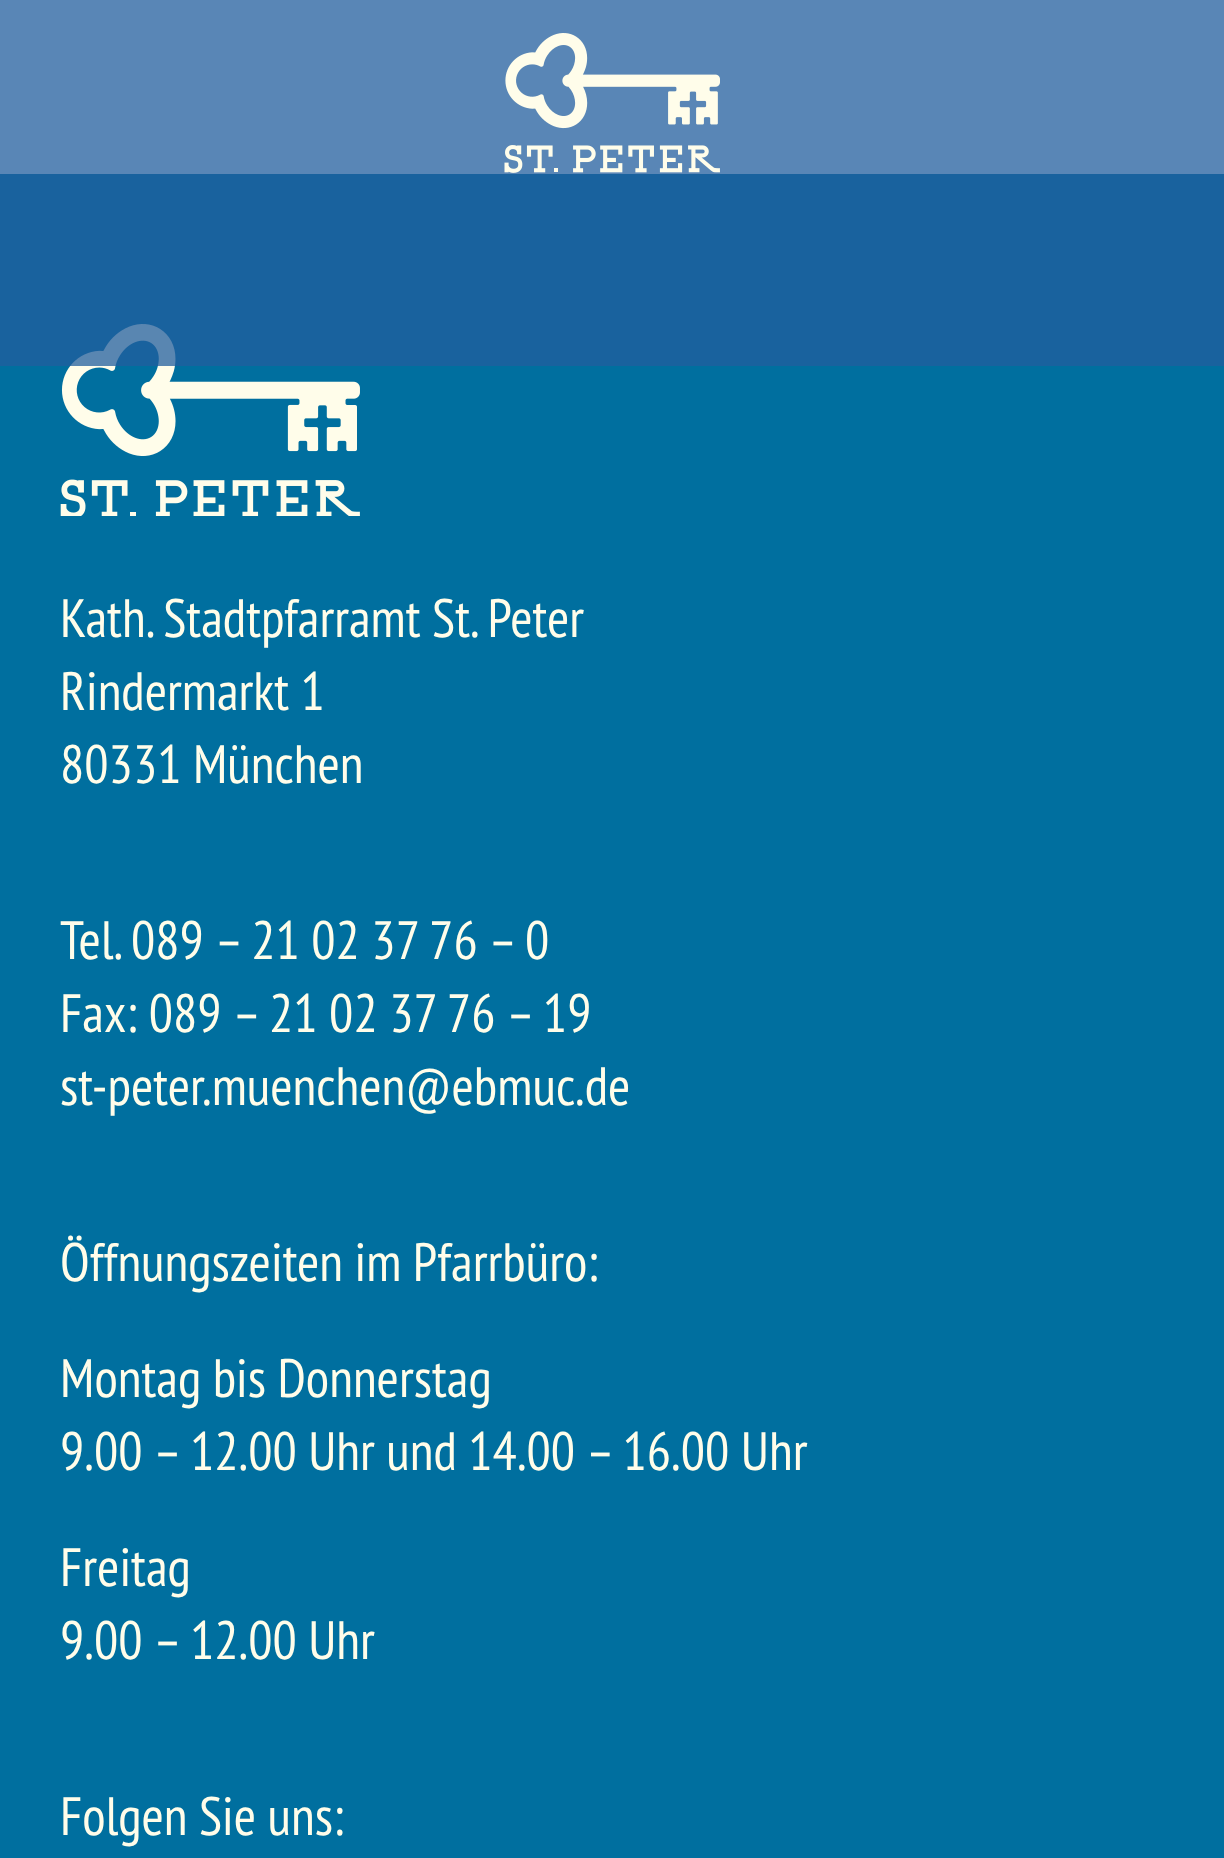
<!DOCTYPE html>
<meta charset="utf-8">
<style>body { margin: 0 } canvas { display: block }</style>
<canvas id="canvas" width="1224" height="1858"></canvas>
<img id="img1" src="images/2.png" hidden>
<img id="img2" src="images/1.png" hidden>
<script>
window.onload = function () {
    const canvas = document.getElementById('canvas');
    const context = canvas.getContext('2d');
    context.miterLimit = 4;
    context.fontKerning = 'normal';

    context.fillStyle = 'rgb(255, 255, 255)';
    context.fillRect(0, 0, 1224, 1858);
    context.fillStyle = 'rgb(0, 111, 159)';
    context.fillRect(0, 174, 1224, 1684);
    context.drawImage(document.getElementById('img1'), 60, 324, 300, 192);
    context.fillStyle = 'rgba(33, 93, 157, 0.75)';
    context.fillRect(0, 0, 1224, 366);
    context.drawImage(document.getElementById('img2'), 504, 33, 216, 140);
    context.font = '54px PT Sans Narrow';
    context.fillStyle = 'rgb(255, 253, 234)';
    context.fillText('Kath. Stadtpfarramt St. Peter', 60, 637);
    context.fillText('Rindermarkt 1', 60, 710);
    context.fillText('80331 München', 60, 783);
    context.fillText('Tel. 089 – 21 02 37 76 – 0', 60, 959);
    context.fillText('Fax: 089 – 21 02 37 76 – 19', 60, 1032);
    context.fillText('st-peter.muenchen@ebmuc.de', 60, 1105);
    context.fillText('Öffnungszeiten im Pfarrbüro:', 60, 1281);
    context.fillText('Montag bis Donnerstag', 60, 1397);
    context.fillText('9.00 – 12.00 Uhr und 14.00 – 16.00 Uhr', 60, 1470);
    context.fillText('Freitag', 60, 1586);
    context.fillText('9.00 – 12.00 Uhr', 60, 1659);
    context.fillText('Folgen Sie uns:', 60, 1835);
};
</script>
